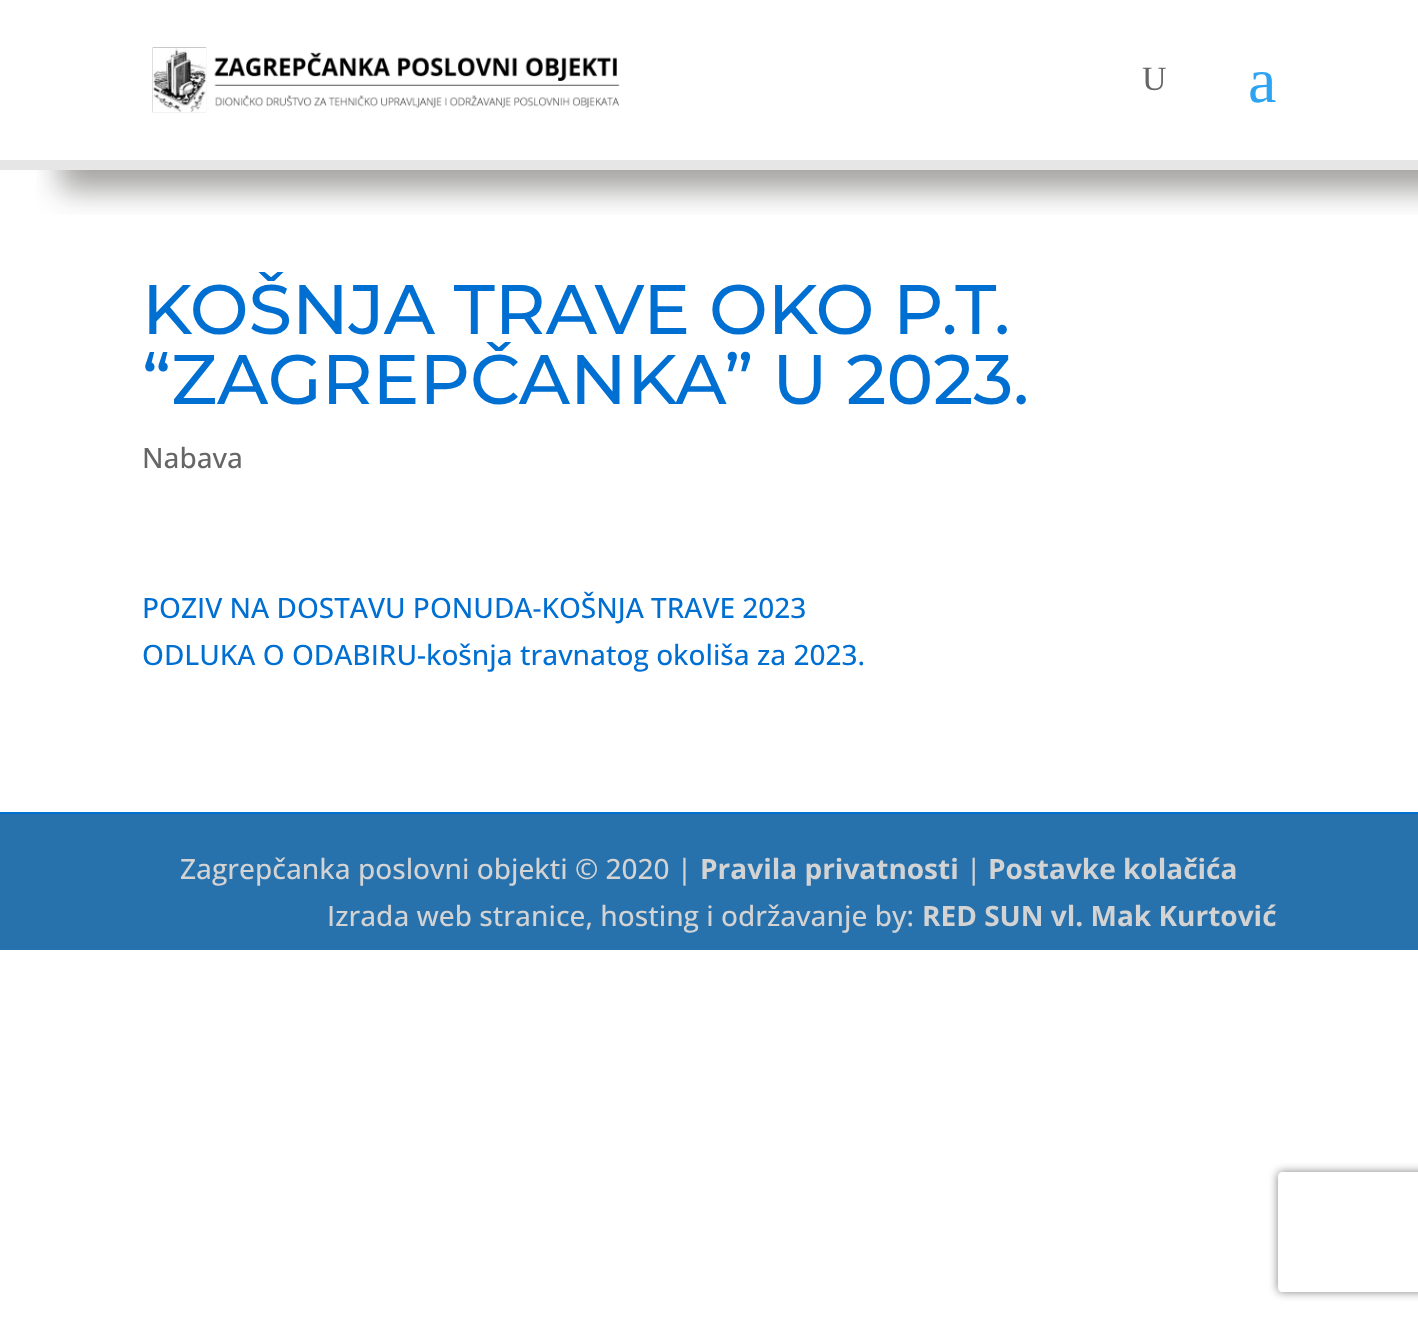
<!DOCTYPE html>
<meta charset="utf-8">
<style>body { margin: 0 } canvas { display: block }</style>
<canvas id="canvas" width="1418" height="1320"></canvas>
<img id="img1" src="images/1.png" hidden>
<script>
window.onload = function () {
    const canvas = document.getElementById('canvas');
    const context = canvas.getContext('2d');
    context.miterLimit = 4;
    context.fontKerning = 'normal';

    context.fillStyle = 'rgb(255, 255, 255)';
    context.fillRect(0, 0, 1418, 1320);
    context.save();
    context.beginPath();
    context.rect(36, 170, 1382, 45);
    context.clip();
    context.fillStyle = 'rgba(24, 22, 20, 0.4)';
    context.filter = 'blur(15px)';
    context.beginPath();
    context.rect(60, 20, 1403, 170);
    context.fill();
    context.filter = 'none';
    context.restore();
    context.fillStyle = 'rgb(230, 230, 230)';
    context.fillRect(0, 160, 1418, 10);
    context.drawImage(document.getElementById('img1'), 152, 47, 468, 66);
    context.fillStyle = 'rgb(0, 111, 210)';
    context.fillRect(0, 812, 1418, 2);
    context.fillStyle = 'rgb(39, 113, 173)';
    context.fillRect(0, 814, 1418, 136);
    context.save();
    context.beginPath();
    context.moveTo(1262, 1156);
    context.lineTo(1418, 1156);
    context.lineTo(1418, 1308);
    context.lineTo(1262, 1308);
    context.closePath();
    context.moveTo(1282, 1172);
    context.lineTo(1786, 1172);
    context.bezierCurveTo(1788, 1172, 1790, 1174, 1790, 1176);
    context.lineTo(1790, 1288);
    context.bezierCurveTo(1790, 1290, 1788, 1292, 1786, 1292);
    context.lineTo(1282, 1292);
    context.bezierCurveTo(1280, 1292, 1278, 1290, 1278, 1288);
    context.lineTo(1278, 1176);
    context.bezierCurveTo(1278, 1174, 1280, 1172, 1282, 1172);
    context.closePath();
    context.clip('evenodd');
    context.fillStyle = 'rgb(128, 128, 128)';
    context.filter = 'blur(5px)';
    context.beginPath();
    context.roundRect(1278, 1172, 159, 120, 4);
    context.fill();
    context.filter = 'none';
    context.restore();
    context.font = '34px Liberation Serif';
    context.fillStyle = 'rgb(102, 102, 102)';
    context.fillText('U', 1142, 90);
    context.font = '64px Liberation Serif';
    context.fillStyle = 'rgb(46, 163, 242)';
    context.fillText('a', 1248, 102);
    context.font = '100 70px Montserrat';
    context.fillStyle = 'rgb(0, 111, 210)';
    context.fillText('KOŠNJA TRAVE OKO P.T.', 142, 334);
    context.fillText('“ZAGREPČANKA” U 2023.', 142, 404);
    context.font = '500 28px Open Sans';
    context.fillStyle = 'rgb(102, 102, 102)';
    context.fillText('Nabava', 142, 468);
    context.fillStyle = 'rgb(0, 111, 210)';
    context.fillText('POZIV NA DOSTAVU PONUDA-KOŠNJA TRAVE 2023', 142, 618);
    context.fillText('ODLUKA O ODABIRU-košnja travnatog okoliša za 2023.', 142, 665);
    context.fillStyle = 'rgb(211, 211, 211)';
    context.fillText('Zagrepčanka poslovni objekti © 2020 |', 180, 879);
    context.font = 'bold 28px Open Sans';
    context.fillText('Pravila privatnosti', 700, 879);
    context.font = '500 28px Open Sans';
    context.fillText('|', 966, 879);
    context.font = 'bold 28px Open Sans';
    context.fillText('Postavke kolačića', 988, 879);
    context.font = '500 28px Open Sans';
    context.fillText('Izrada web stranice, hosting i održavanje by:', 327, 926);
    context.font = 'bold 28px Open Sans';
    context.fillText('RED SUN vl. Mak Kurtović', 922, 926);
};
</script>
